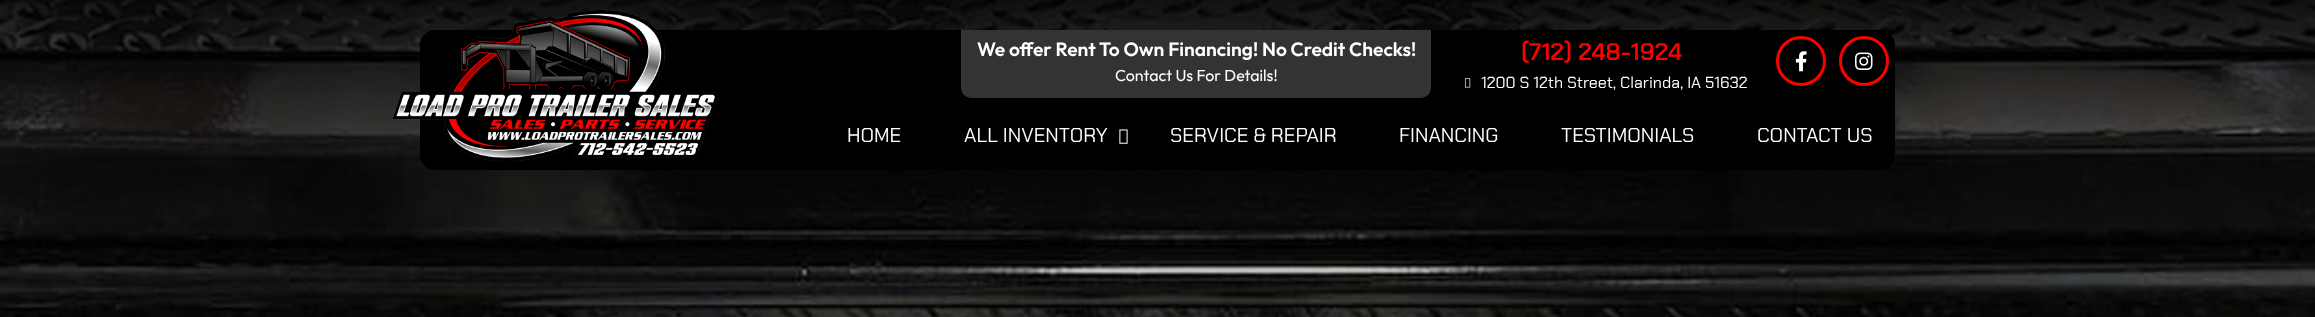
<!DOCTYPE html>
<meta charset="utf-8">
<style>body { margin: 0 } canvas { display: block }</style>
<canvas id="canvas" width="2315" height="317"></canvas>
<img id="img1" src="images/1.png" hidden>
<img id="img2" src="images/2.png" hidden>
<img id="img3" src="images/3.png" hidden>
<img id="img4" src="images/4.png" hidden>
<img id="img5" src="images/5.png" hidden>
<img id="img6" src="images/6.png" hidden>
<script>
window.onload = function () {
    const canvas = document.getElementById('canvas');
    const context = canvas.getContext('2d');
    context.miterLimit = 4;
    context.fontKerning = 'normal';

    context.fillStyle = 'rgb(255, 255, 255)';
    context.fillRect(0, 0, 2315, 317);
    context.drawImage(document.getElementById('img1'), 0, 0, 2315, 317);
    context.fillStyle = 'rgb(0, 0, 0)';
    context.beginPath();
    context.roundRect(420, 30, 1475, 140, 15);
    context.fill();
    context.drawImage(document.getElementById('img2'), 392, 10, 326, 152);
    context.fillStyle = 'rgb(51, 51, 51)';
    context.beginPath();
    context.roundRect(961, 30, 470, 68, [0, 0, 10, 10]);
    context.fill();
    context.drawImage(document.getElementById('img3'), 1464, 78, 7, 10);
    context.beginPath();
    context.arc(1801, 61, 23.5, 0, 2 * Math.PI);
    context.strokeStyle = 'rgb(255, 0, 1)';
    context.lineWidth = 3;
    context.stroke();
    context.drawImage(document.getElementById('img4'), 1795, 51, 12, 21);
    context.beginPath();
    context.arc(1864, 61, 23.5, 0, 2 * Math.PI);
    context.stroke();
    context.drawImage(document.getElementById('img5'), 1855, 52, 18, 18);
    context.drawImage(document.getElementById('img6'), 1119, 129, 9, 15);
    context.font = '600 19.2px Outfit';
    context.fillStyle = 'rgb(255, 255, 255)';
    context.fillText('We offer Rent To Own Financing! No Credit Checks!', 977, 56);
    context.font = '16px Outfit';
    context.fillText('Contact Us For Details!', 1115, 81);
    context.font = '600 24px Chakra Petch';
    context.fillStyle = 'rgb(255, 0, 1)';
    context.fillText('(712) 248-1924', 1521, 60);
    context.font = '16px Chakra Petch';
    context.fillStyle = 'rgb(255, 255, 255)';
    context.fillText('1200 S 12th Street, Clarinda, IA 51632', 1481, 88);
    context.font = '20px Chakra Petch';
    context.fillText('HOME', 847, 142);
    context.fillText('ALL INVENTORY', 964, 142);
    context.fillText('SERVICE & REPAIR', 1170, 142);
    context.fillText('FINANCING', 1399, 142);
    context.fillText('TESTIMONIALS', 1561, 142);
    context.fillText('CONTACT US', 1757, 142);
};
</script>
